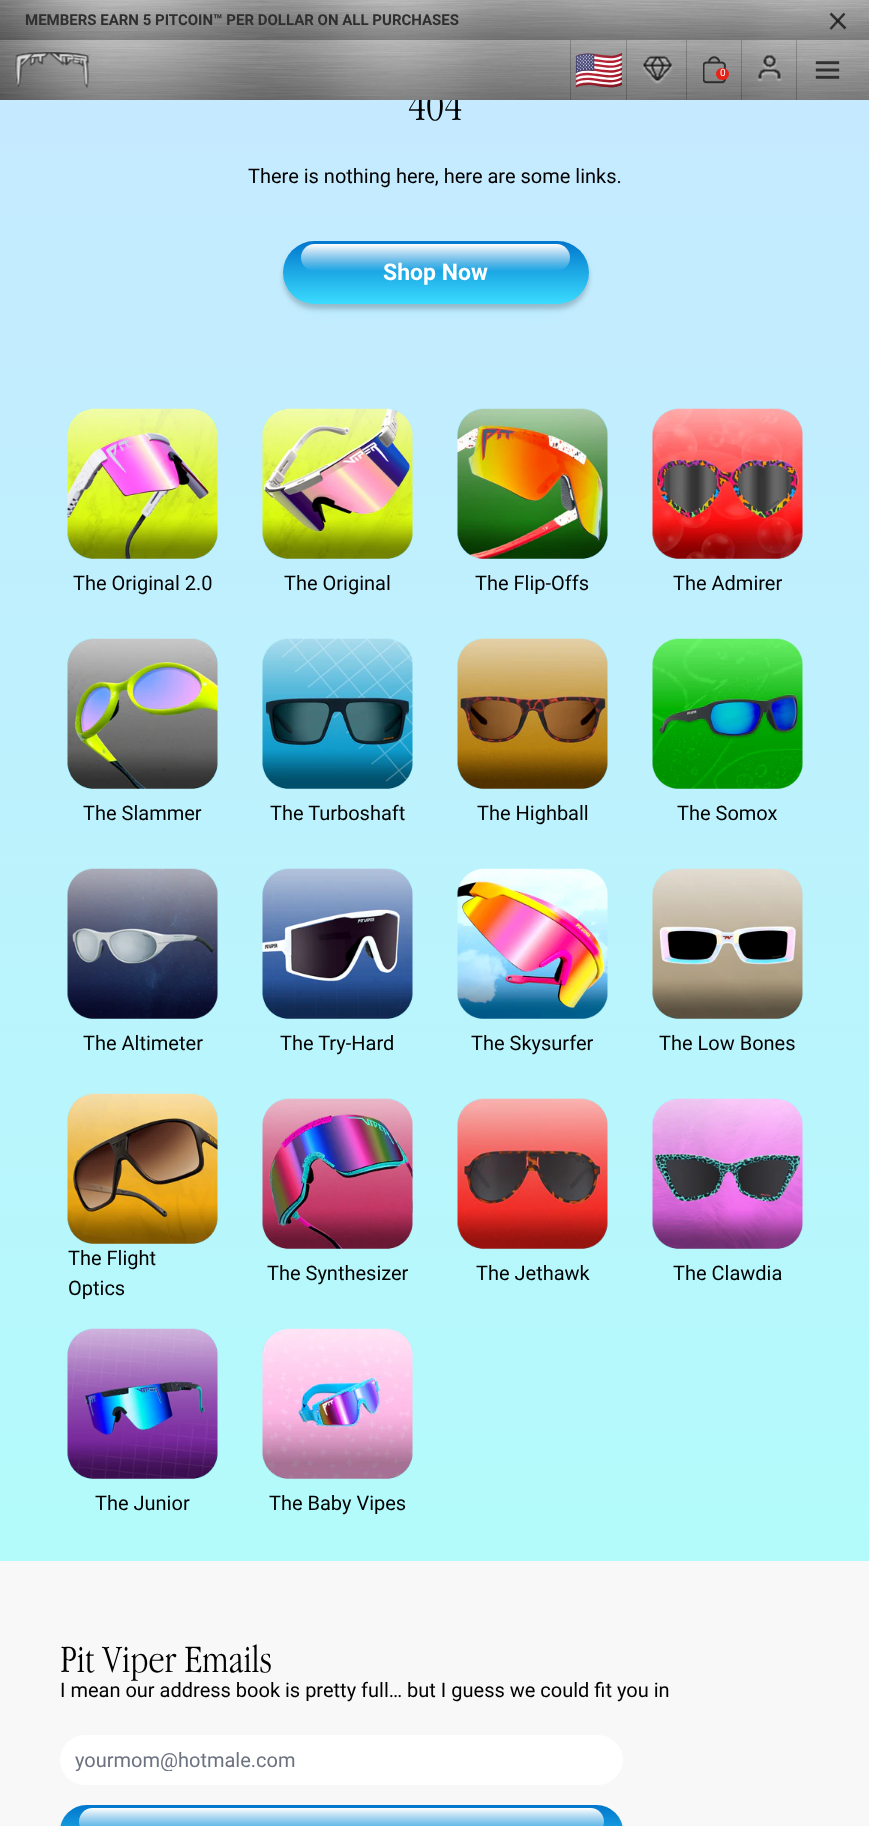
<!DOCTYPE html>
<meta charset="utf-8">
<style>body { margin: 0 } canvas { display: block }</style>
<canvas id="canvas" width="869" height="1826"></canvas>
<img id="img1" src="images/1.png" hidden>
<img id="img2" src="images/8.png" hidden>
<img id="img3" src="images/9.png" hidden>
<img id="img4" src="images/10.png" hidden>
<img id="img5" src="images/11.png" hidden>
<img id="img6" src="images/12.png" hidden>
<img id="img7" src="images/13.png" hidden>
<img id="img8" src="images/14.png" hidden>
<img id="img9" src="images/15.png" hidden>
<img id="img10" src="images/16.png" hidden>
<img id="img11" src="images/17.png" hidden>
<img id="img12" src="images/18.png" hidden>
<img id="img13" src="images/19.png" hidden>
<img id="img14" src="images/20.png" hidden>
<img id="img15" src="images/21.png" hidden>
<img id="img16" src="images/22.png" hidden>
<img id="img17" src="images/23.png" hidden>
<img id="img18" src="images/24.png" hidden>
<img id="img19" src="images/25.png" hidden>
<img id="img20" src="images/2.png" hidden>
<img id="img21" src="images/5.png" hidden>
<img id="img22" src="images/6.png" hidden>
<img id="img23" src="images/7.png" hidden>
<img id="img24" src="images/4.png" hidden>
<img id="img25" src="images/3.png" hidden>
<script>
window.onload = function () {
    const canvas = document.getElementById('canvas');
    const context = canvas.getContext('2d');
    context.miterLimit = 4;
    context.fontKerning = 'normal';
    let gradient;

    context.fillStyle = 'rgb(255, 255, 255)';
    context.fillRect(0, 0, 869, 1826);
    context.drawImage(document.getElementById('img1'), 0, 0, 869, 40);
    context.beginPath();
    context.moveTo(830.5, 13.5);
    context.lineTo(845.5, 28.5);
    context.strokeStyle = 'rgba(23, 23, 23, 0.8)';
    context.lineWidth = 2.5;
    context.stroke();
    context.beginPath();
    context.moveTo(830.5, 29);
    context.lineTo(844.5, 13.5);
    context.stroke();
    gradient = context.createLinearGradient(435, 40, 435, 1561);
    gradient.addColorStop(0, 'rgb(198, 233, 255)');
    gradient.addColorStop(1, 'rgb(179, 251, 251)');
    context.fillStyle = gradient;
    context.fillRect(0, 100, 869, 1461);
    context.fillStyle = 'rgba(0, 196, 255, 0.2)';
    context.filter = 'blur(12.5px)';
    context.beginPath();
    context.roundRect(308, 286, 256, 13, 6.5);
    context.fill();
    context.filter = 'none';
    context.fillStyle = 'rgba(0, 0, 0, 0.2)';
    context.filter = 'blur(2.5px)';
    context.beginPath();
    context.roundRect(283, 246, 306, 63, 31.5);
    context.fill();
    context.filter = 'none';
    gradient = context.createLinearGradient(436, 241, 436, 304);
    gradient.addColorStop(0, 'rgb(0, 118, 204)');
    gradient.addColorStop(1, 'rgb(59, 220, 255)');
    context.fillStyle = gradient;
    context.beginPath();
    context.roundRect(283, 241, 306, 63, 31.5);
    context.fill();
    context.drawImage(document.getElementById('img2'), 67, 408, 151, 151);
    context.drawImage(document.getElementById('img3'), 262, 408, 151, 151);
    context.drawImage(document.getElementById('img4'), 457, 408, 151, 151);
    context.drawImage(document.getElementById('img5'), 652, 408, 151, 151);
    context.drawImage(document.getElementById('img6'), 67, 638, 151, 151);
    context.drawImage(document.getElementById('img7'), 262, 638, 151, 151);
    context.drawImage(document.getElementById('img8'), 457, 638, 151, 151);
    context.drawImage(document.getElementById('img9'), 652, 638, 151, 151);
    context.drawImage(document.getElementById('img10'), 67, 868, 151, 151);
    context.drawImage(document.getElementById('img11'), 262, 868, 151, 151);
    context.drawImage(document.getElementById('img12'), 457, 868, 151, 151);
    context.drawImage(document.getElementById('img13'), 652, 868, 151, 151);
    context.drawImage(document.getElementById('img14'), 67, 1093, 151, 151);
    context.drawImage(document.getElementById('img15'), 262, 1098, 151, 151);
    context.drawImage(document.getElementById('img16'), 457, 1098, 151, 151);
    context.drawImage(document.getElementById('img17'), 652, 1098, 151, 151);
    context.drawImage(document.getElementById('img18'), 67, 1328, 151, 151);
    context.drawImage(document.getElementById('img19'), 262, 1328, 151, 151);
    context.fillStyle = 'rgb(248, 248, 248)';
    context.fillRect(0, 1561, 869, 265);
    context.fillStyle = 'rgb(255, 255, 255)';
    context.beginPath();
    context.roundRect(60, 1735, 563, 50, 25);
    context.fill();
    context.fillStyle = 'rgba(0, 0, 0, 0.2)';
    context.filter = 'blur(2.5px)';
    context.beginPath();
    context.roundRect(60, 1810, 563, 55, 31.5);
    context.fill();
    context.filter = 'none';
    gradient = context.createLinearGradient(341, 1805, 341, 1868);
    gradient.addColorStop(0, 'rgb(0, 118, 204)');
    gradient.addColorStop(1, 'rgb(59, 220, 255)');
    context.fillStyle = gradient;
    context.beginPath();
    context.roundRect(60, 1805, 563, 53, 31.5);
    context.fill();
    gradient = context.createLinearGradient(341, 1808, 341, 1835);
    gradient.addColorStop(0, 'rgb(255, 255, 255)');
    gradient.addColorStop(1, 'rgba(255, 255, 255, 0)');
    context.fillStyle = gradient;
    context.beginPath();
    context.roundRect(79, 1808, 525, 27, 13.5);
    context.fill();
    context.font = 'bold 15px Roboto';
    context.fillStyle = 'rgb(47, 47, 47)';
    context.fillText('MEMBERS EARN 5 PITCOIN™ PER DOLLAR ON ALL PURCHASES', 25, 25);
    context.font = '300 45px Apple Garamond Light';
    context.fillStyle = 'rgb(0, 0, 0)';
    context.fillText('404', 408, 120);
    context.drawImage(document.getElementById('img20'), 0, 40, 869, 60);
    context.drawImage(document.getElementById('img21'), 703, 56, 23, 28);
    context.fillStyle = 'rgb(231, 35, 24)';
    context.beginPath();
    context.roundRect(716, 68, 13, 12, 6);
    context.fill();
    context.font = '10px Roboto';
    context.fillStyle = 'rgb(255, 255, 255)';
    context.fillText('0', 720, 76);
    context.drawImage(document.getElementById('img22'), 757, 55, 25, 27);
    context.fillStyle = 'rgba(0, 0, 0, 0.2)';
    context.fillRect(741, 40, 1, 60);
    context.fillRect(686, 40, 1, 60);
    context.drawImage(document.getElementById('img23'), 815, 61, 25, 18);
    context.drawImage(document.getElementById('img24'), 642, 56, 31, 28);
    context.drawImage(document.getElementById('img25'), 15, 52, 75, 36);
    context.fillRect(796, 40, 1, 60);
    context.fillRect(626, 40, 1, 60);
    context.font = '40px Noto Color Emoji';
    context.fillStyle = 'rgb(47, 47, 47)';
    context.fillText('🇺🇸', 574, 84);
    context.fillStyle = 'rgba(0, 0, 0, 0.2)';
    context.fillRect(570, 40, 1, 60);
    context.font = '20px Roboto';
    context.fillStyle = 'rgb(0, 0, 0)';
    context.fillText('There is nothing here, here are some links.', 248, 183);
    context.font = 'bold 23px Roboto';
    context.fillStyle = 'rgb(255, 255, 255)';
    context.fillText('Shop Now', 383, 280);
    gradient = context.createLinearGradient(435, 244, 435, 271);
    gradient.addColorStop(0, 'rgb(255, 255, 255)');
    gradient.addColorStop(1, 'rgba(255, 255, 255, 0)');
    context.fillStyle = gradient;
    context.beginPath();
    context.roundRect(301, 244, 269, 27, 13.5);
    context.fill();
    context.font = '20px Roboto';
    context.fillStyle = 'rgb(0, 0, 0)';
    context.fillText('The Original 2.0', 73, 590);
    context.fillText('The Original', 284, 590);
    context.fillText('The Flip-Offs', 475, 590);
    context.fillText('The Admirer', 673, 590);
    context.fillText('The Slammer', 83, 820);
    context.fillText('The Turboshaft', 270, 820);
    context.fillText('The Highball', 477, 820);
    context.fillText('The Somox', 677, 820);
    context.fillText('The Altimeter', 83, 1050);
    context.fillText('The Try-Hard', 280, 1050);
    context.fillText('The Skysurfer', 471, 1050);
    context.fillText('The Low Bones', 659, 1050);
    context.fillText('The Flight', 68, 1265);
    context.fillText('Optics', 68, 1295);
    context.fillText('The Synthesizer', 267, 1280);
    context.fillText('The Jethawk', 476, 1280);
    context.fillText('The Clawdia', 673, 1280);
    context.fillText('The Junior', 95, 1510);
    context.fillText('The Baby Vipes', 269, 1510);
    context.font = '300 40px Apple Garamond Light';
    context.fillText('Pit Viper Emails', 60, 1672);
    context.font = '20px Roboto';
    context.fillText('I mean our address book is pretty full… but I guess we could fit you in', 60, 1697);
    context.save();
    context.beginPath();
    context.rect(75, 1748, 533, 23);
    context.clip();
    context.fillStyle = 'rgb(107, 114, 128)';
    context.fillText('yourmom@hotmale.com', 75, 1767);
    context.restore();
};
</script>
